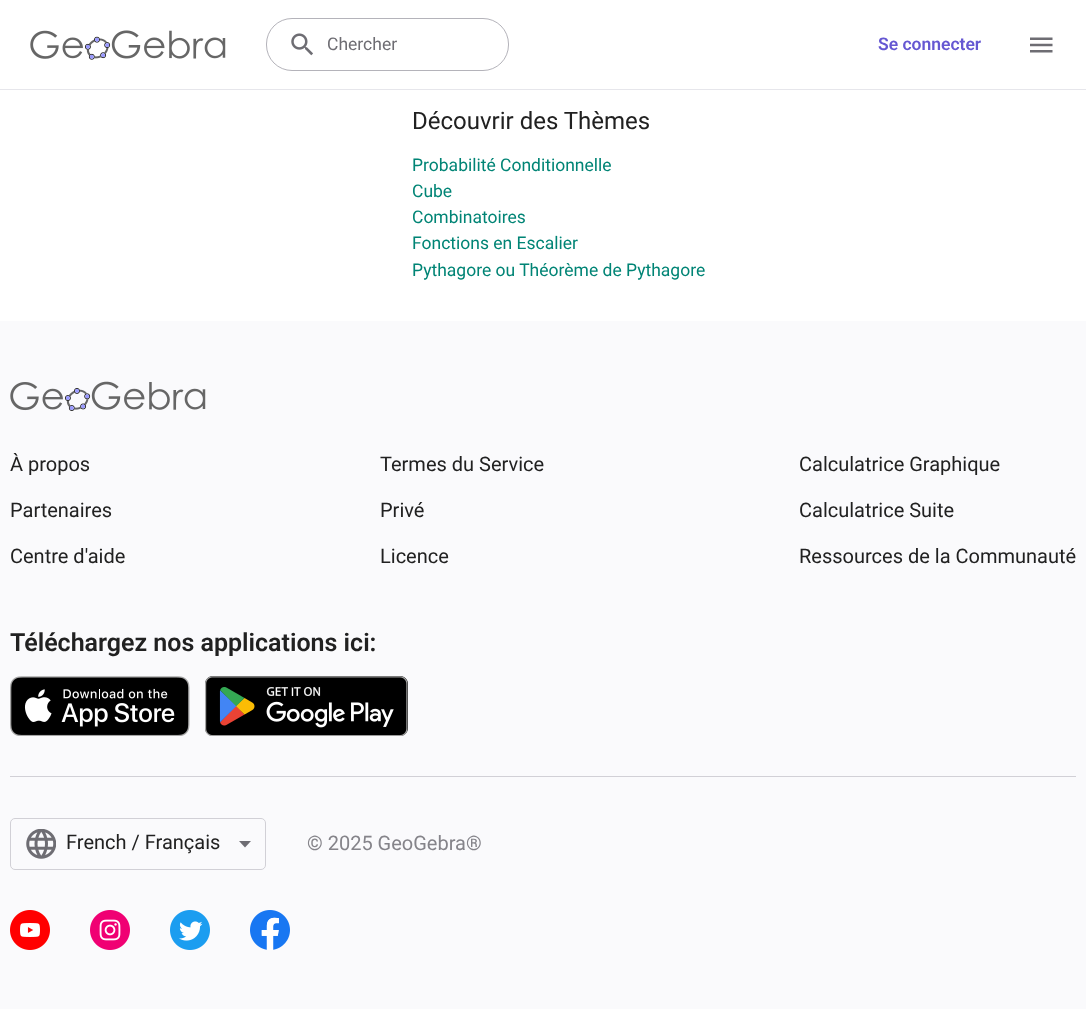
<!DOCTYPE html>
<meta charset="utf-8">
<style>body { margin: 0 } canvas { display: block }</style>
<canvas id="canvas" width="1086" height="1009"></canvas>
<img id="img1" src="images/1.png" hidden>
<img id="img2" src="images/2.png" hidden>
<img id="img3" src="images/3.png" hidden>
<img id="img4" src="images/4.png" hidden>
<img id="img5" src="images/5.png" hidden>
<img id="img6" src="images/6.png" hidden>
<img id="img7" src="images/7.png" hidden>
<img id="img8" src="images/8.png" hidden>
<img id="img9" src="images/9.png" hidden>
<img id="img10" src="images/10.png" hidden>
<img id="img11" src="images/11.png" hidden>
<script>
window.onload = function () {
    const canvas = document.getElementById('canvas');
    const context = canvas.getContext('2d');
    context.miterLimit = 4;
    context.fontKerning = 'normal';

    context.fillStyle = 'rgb(255, 255, 255)';
    context.fillRect(0, 0, 1086, 1009);
    context.fillStyle = 'rgb(230, 230, 235)';
    context.fillRect(0, 89, 1086, 1);
    context.drawImage(document.getElementById('img1'), 30, 30, 196, 30);
    context.beginPath();
    context.roundRect(266.5, 18.5, 242, 52, 25.5);
    context.strokeStyle = 'rgb(180, 179, 186)';
    context.stroke();
    context.drawImage(document.getElementById('img2'), 291, 33, 22, 23);
    context.drawImage(document.getElementById('img3'), 1030, 37, 23, 16);
    context.fillStyle = 'rgb(250, 250, 252)';
    context.fillRect(0, 321, 1086, 688);
    context.drawImage(document.getElementById('img4'), 10, 381, 196, 30);
    context.drawImage(document.getElementById('img5'), 10, 676, 180, 60);
    context.drawImage(document.getElementById('img6'), 205, 676, 203, 60);
    context.fillStyle = 'rgb(209, 208, 214)';
    context.fillRect(10, 776, 1066, 1);
    context.beginPath();
    context.roundRect(10.5, 818.5, 255, 51, 4.5);
    context.strokeStyle = 'rgb(209, 208, 214)';
    context.stroke();
    context.drawImage(document.getElementById('img7'), 26, 829, 30, 30);
    context.fillStyle = 'rgb(110, 109, 115)';
    context.beginPath();
    context.moveTo(239, 841);
    context.lineTo(245, 847.5);
    context.lineTo(251, 841);
    context.closePath();
    context.fill();
    context.drawImage(document.getElementById('img8'), 10, 910, 40, 40);
    context.drawImage(document.getElementById('img9'), 90, 910, 40, 40);
    context.drawImage(document.getElementById('img10'), 170, 910, 40, 40);
    context.drawImage(document.getElementById('img11'), 250, 910, 40, 40);
    context.font = '17.5px Roboto';
    context.fillText('Chercher', 327, 50);
    context.font = '600 17.5px Roboto';
    context.fillStyle = 'rgb(101, 87, 210)';
    context.fillText('Se connecter', 878, 50);
    context.font = '24px Roboto';
    context.fillStyle = 'rgb(33, 33, 33)';
    context.fillText('Découvrir des Thèmes', 412, 129);
    context.font = '17.5px Roboto';
    context.fillStyle = 'rgb(0, 132, 117)';
    context.fillText('Probabilité Conditionnelle', 412, 171);
    context.fillText('Cube', 412, 197);
    context.fillText('Combinatoires', 412, 223);
    context.fillText('Fonctions en Escalier', 412, 249);
    context.fillText('Pythagore ou Théorème de Pythagore', 412, 276);
    context.font = '20px Roboto';
    context.fillStyle = 'rgb(33, 33, 33)';
    context.fillText('À propos', 10, 471);
    context.fillText('Partenaires', 10, 517);
    context.fillText('Centre d\'aide', 10, 563);
    context.fillText('Termes du Service', 380, 471);
    context.fillText('Privé', 380, 517);
    context.fillText('Licence', 380, 563);
    context.fillText('Calculatrice Graphique', 799, 471);
    context.fillText('Calculatrice Suite', 799, 517);
    context.fillText('Ressources de la Communauté', 799, 563);
    context.font = '600 25px Roboto';
    context.fillText('Téléchargez nos applications ici:', 10, 651);
    context.font = '20px Roboto';
    context.fillText('French / Français', 66, 849);
    context.fillStyle = 'rgb(133, 132, 138)';
    context.fillText('© 2025 GeoGebra®', 307, 850);
};
</script>
